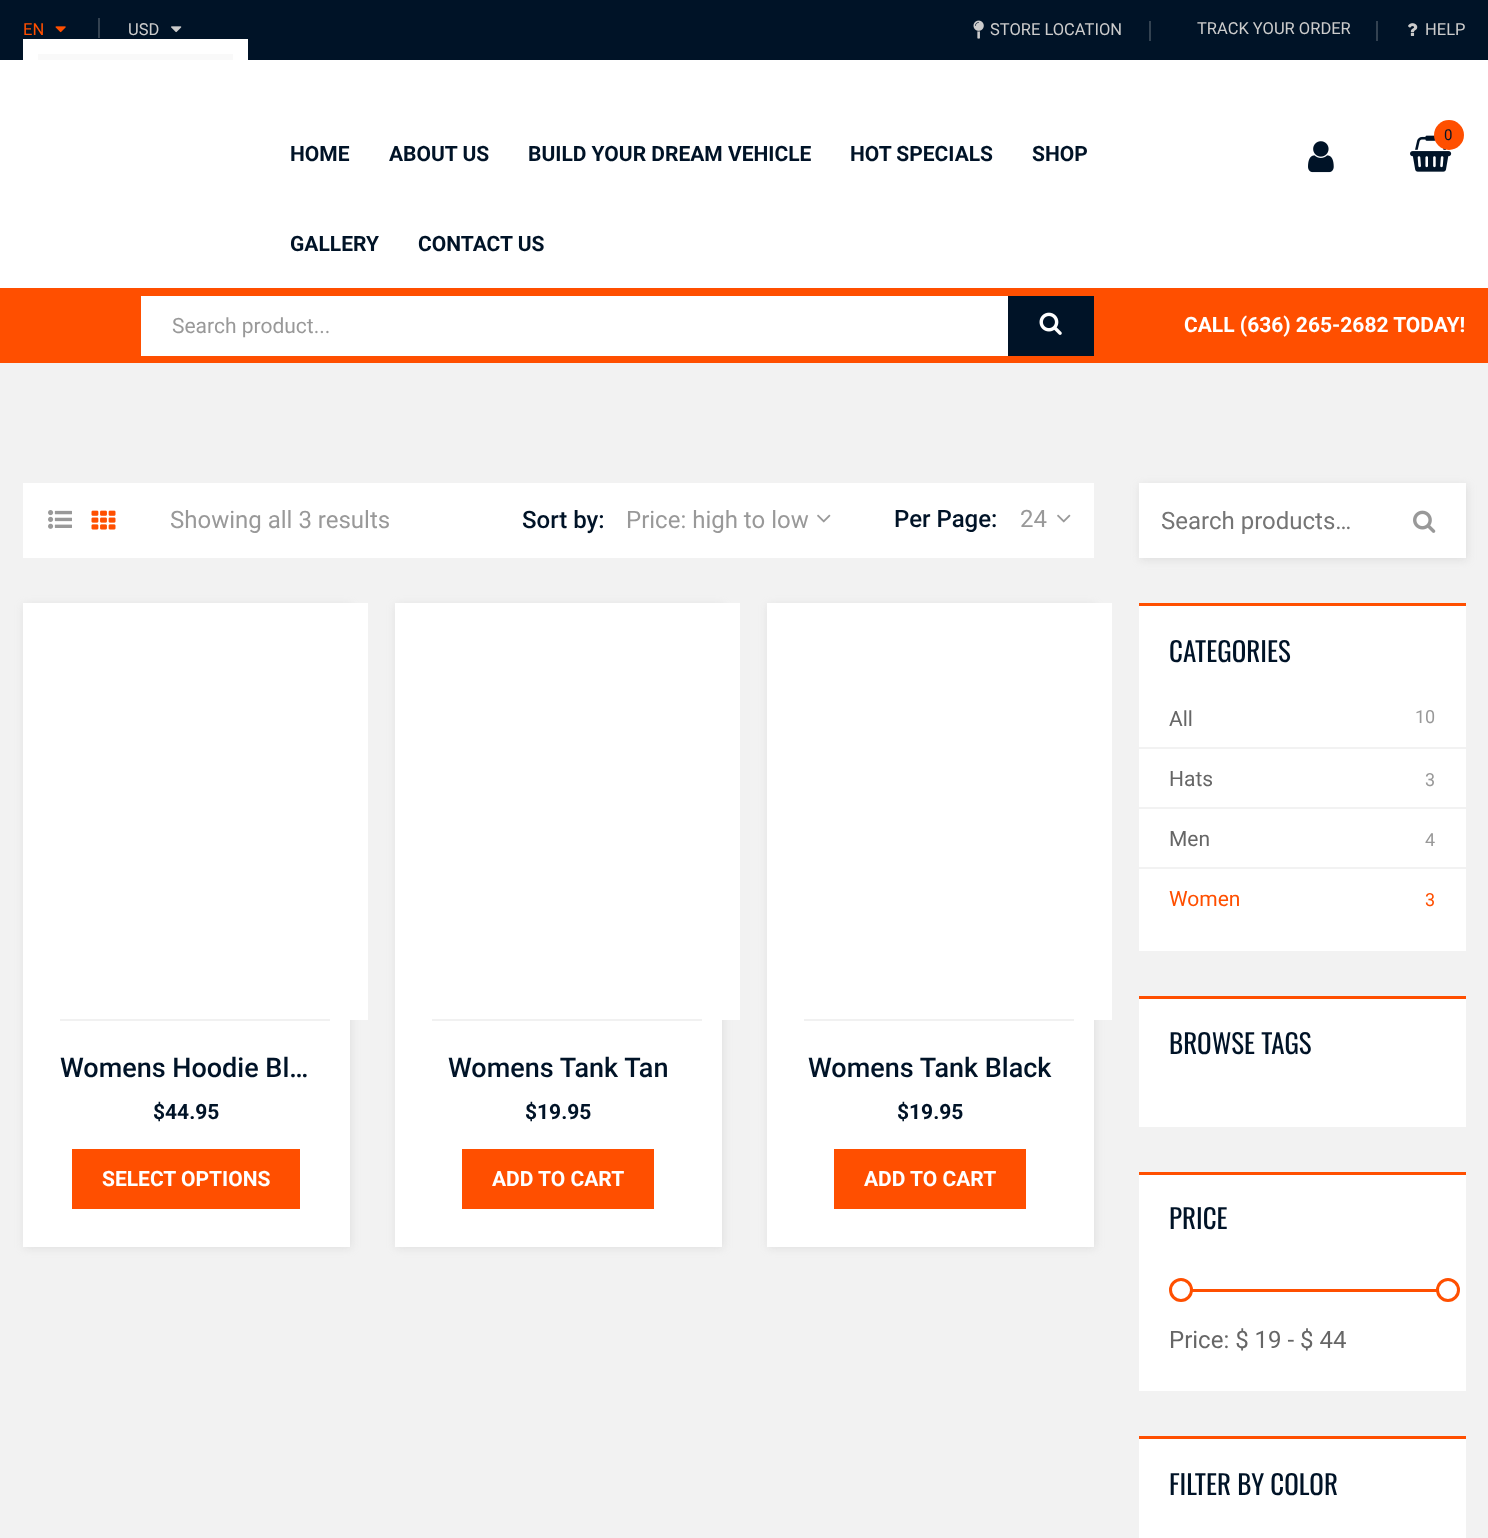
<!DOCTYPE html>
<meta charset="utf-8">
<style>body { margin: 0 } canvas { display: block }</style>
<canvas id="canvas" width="1488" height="1538"></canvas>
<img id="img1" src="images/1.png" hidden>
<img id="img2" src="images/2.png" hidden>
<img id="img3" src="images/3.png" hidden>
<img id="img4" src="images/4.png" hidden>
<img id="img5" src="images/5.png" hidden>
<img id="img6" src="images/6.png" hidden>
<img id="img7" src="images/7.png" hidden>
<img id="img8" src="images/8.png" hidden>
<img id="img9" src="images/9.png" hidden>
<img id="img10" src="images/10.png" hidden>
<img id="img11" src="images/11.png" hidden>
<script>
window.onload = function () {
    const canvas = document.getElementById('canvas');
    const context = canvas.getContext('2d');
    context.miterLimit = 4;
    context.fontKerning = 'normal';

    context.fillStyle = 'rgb(242, 242, 242)';
    context.fillRect(0, 0, 1488, 1538);
    context.fillStyle = 'rgb(0, 19, 39)';
    context.fillRect(0, 0, 1488, 60);
    context.drawImage(document.getElementById('img1'), 55, 26, 11, 7);
    context.fillStyle = 'rgb(255, 255, 255)';
    context.fillRect(23, 39, 225, 21);
    context.fillStyle = 'rgb(249, 249, 249)';
    context.fillRect(38, 54, 195, 6);
    context.fillStyle = 'rgb(51, 66, 81)';
    context.fillRect(98, 18, 2, 20);
    context.drawImage(document.getElementById('img2'), 171, 26, 11, 7);
    context.drawImage(document.getElementById('img3'), 973, 20, 11, 19);
    context.fillRect(1149, 21, 2, 20);
    context.fillRect(1376, 21, 2, 20);
    context.drawImage(document.getElementById('img4'), 1408, 23, 10, 13);
    context.fillStyle = 'rgb(255, 255, 255)';
    context.fillRect(0, 60, 1488, 228);
    context.drawImage(document.getElementById('img5'), 1410, 135, 42, 37);
    context.fillStyle = 'rgb(255, 79, 0)';
    context.beginPath();
    context.arc(1449, 135, 15, 0, 2 * Math.PI);
    context.fill();
    context.drawImage(document.getElementById('img6'), 1308, 141, 26, 32);
    context.fillRect(0, 288, 1488, 75);
    context.fillStyle = 'rgb(255, 255, 255)';
    context.fillRect(141, 296, 867, 60);
    context.fillStyle = 'rgb(0, 19, 39)';
    context.fillRect(1008, 296, 86, 60);
    context.drawImage(document.getElementById('img7'), 1039, 312, 23, 23);
    context.fillStyle = 'rgb(255, 255, 255)';
    context.fillRect(23, 483, 1071, 75);
    context.drawImage(document.getElementById('img8'), 48, 510, 24, 19);
    context.drawImage(document.getElementById('img9'), 91, 510, 25, 20);
    context.drawImage(document.getElementById('img10'), 817, 514, 14, 9);
    context.drawImage(document.getElementById('img10'), 1057, 514, 14, 9);
    context.fillStyle = 'rgba(179, 179, 179, 0.3)';
    context.filter = 'blur(4px)';
    context.beginPath();
    context.rect(24, 605, 327, 643);
    context.fill();
    context.filter = 'none';
    context.fillStyle = 'rgb(255, 255, 255)';
    context.fillRect(23, 1020, 327, 227);
    context.fillRect(23, 603, 345, 417);
    context.fillStyle = 'rgb(241, 241, 241)';
    context.fillRect(60, 1019, 270, 2);
    context.fillStyle = 'rgb(255, 79, 0)';
    context.fillRect(72, 1149, 228, 60);
    context.fillStyle = 'rgba(179, 179, 179, 0.3)';
    context.filter = 'blur(4px)';
    context.beginPath();
    context.rect(396, 605, 327, 643);
    context.fill();
    context.filter = 'none';
    context.fillStyle = 'rgb(255, 255, 255)';
    context.fillRect(395, 1020, 327, 227);
    context.fillRect(395, 603, 345, 417);
    context.fillStyle = 'rgb(241, 241, 241)';
    context.fillRect(432, 1019, 270, 2);
    context.fillStyle = 'rgb(255, 79, 0)';
    context.fillRect(462, 1149, 192, 60);
    context.fillStyle = 'rgba(179, 179, 179, 0.3)';
    context.filter = 'blur(4px)';
    context.beginPath();
    context.rect(768, 605, 327, 643);
    context.fill();
    context.filter = 'none';
    context.fillStyle = 'rgb(255, 255, 255)';
    context.fillRect(767, 1020, 327, 227);
    context.fillRect(767, 603, 345, 417);
    context.fillStyle = 'rgb(241, 241, 241)';
    context.fillRect(804, 1019, 270, 2);
    context.fillStyle = 'rgb(255, 79, 0)';
    context.fillRect(834, 1149, 192, 60);
    context.fillStyle = 'rgba(179, 179, 179, 0.3)';
    context.filter = 'blur(4px)';
    context.beginPath();
    context.rect(1140, 485, 327, 75);
    context.fill();
    context.filter = 'none';
    context.fillStyle = 'rgb(255, 255, 255)';
    context.fillRect(1139, 483, 327, 75);
    context.drawImage(document.getElementById('img11'), 1413, 510, 23, 23);
    context.fillRect(1139, 606, 327, 345);
    context.fillStyle = 'rgb(255, 79, 0)';
    context.fillRect(1139, 603, 327, 3);
    context.fillStyle = 'rgb(242, 242, 242)';
    context.fillRect(1139, 747, 327, 2);
    context.fillRect(1139, 807, 327, 2);
    context.fillRect(1139, 867, 327, 2);
    context.fillStyle = 'rgb(255, 255, 255)';
    context.fillRect(1139, 999, 327, 128);
    context.fillStyle = 'rgb(255, 79, 0)';
    context.fillRect(1139, 996, 327, 3);
    context.fillStyle = 'rgb(255, 255, 255)';
    context.fillRect(1139, 1175, 327, 216);
    context.fillStyle = 'rgb(255, 79, 0)';
    context.fillRect(1139, 1172, 327, 3);
    context.fillRect(1192, 1289, 251, 3);
    context.fillStyle = 'rgb(255, 255, 255)';
    context.beginPath();
    context.arc(1181, 1290, 10.5, 0, 2 * Math.PI);
    context.fill();
    context.strokeStyle = 'rgb(255, 79, 0)';
    context.lineWidth = 3;
    context.stroke();
    context.beginPath();
    context.arc(1448, 1290, 10.5, 0, 2 * Math.PI);
    context.fill();
    context.stroke();
    context.fillRect(1139, 1439, 327, 99);
    context.fillStyle = 'rgb(255, 79, 0)';
    context.fillRect(1139, 1436, 327, 3);
    context.font = '16.5px Roboto';
    context.fillText('EN', 23, 35);
    context.fillStyle = 'rgb(204, 204, 204)';
    context.fillText('USD', 128, 35);
    context.fillText('STORE LOCATION', 990, 35);
    context.fillText('TRACK YOUR ORDER', 1197, 34);
    context.fillText('HELP', 1425, 35);
    context.font = '15px Roboto';
    context.fillStyle = 'rgb(0, 19, 39)';
    context.fillText('0', 1444, 140);
    context.font = 'bold 21px Roboto';
    context.fillText('HOME', 290, 161);
    context.fillText('ABOUT US', 389, 161);
    context.fillText('BUILD YOUR DREAM VEHICLE', 528, 161);
    context.fillText('HOT SPECIALS', 850, 161);
    context.fillText('SHOP', 1032, 161);
    context.fillText('GALLERY', 290, 251);
    context.fillText('CONTACT US', 418, 251);
    context.font = '21px Roboto';
    context.fillStyle = 'rgb(153, 153, 153)';
    context.fillText('Search product...', 172, 333);
    context.font = 'bold 21px Roboto';
    context.fillStyle = 'rgb(255, 255, 255)';
    context.fillText('CALL (636) 265-2682 TODAY!', 1184, 332);
    context.font = '24px Roboto';
    context.fillStyle = 'rgb(153, 153, 153)';
    context.fillText('Showing all 3 results', 170, 528);
    context.font = '500 24px Roboto';
    context.fillStyle = 'rgb(0, 19, 39)';
    context.fillText('Sort by:', 522, 528);
    context.font = '24px Roboto';
    context.fillStyle = 'rgb(153, 153, 153)';
    context.fillText('Price: high to low', 626, 528);
    context.font = '500 24px Roboto';
    context.fillStyle = 'rgb(0, 19, 39)';
    context.fillText('Per Page:', 894, 527);
    context.font = '24px Roboto';
    context.fillStyle = 'rgb(153, 153, 153)';
    context.fillText('24', 1020, 527);
    context.font = '500 27px Roboto';
    context.fillStyle = 'rgb(0, 19, 39)';
    context.fillText('Womens Hoodie Bl…', 60, 1077);
    context.font = 'bold 21px Roboto';
    context.fillText('$44.95', 153, 1119);
    context.fillStyle = 'rgb(255, 255, 255)';
    context.fillText('SELECT OPTIONS', 102, 1186);
    context.font = '500 27px Roboto';
    context.fillStyle = 'rgb(0, 19, 39)';
    context.fillText('Womens Tank Tan', 448, 1077);
    context.font = 'bold 21px Roboto';
    context.fillText('$19.95', 525, 1119);
    context.fillStyle = 'rgb(255, 255, 255)';
    context.fillText('ADD TO CART', 492, 1186);
    context.font = '500 27px Roboto';
    context.fillStyle = 'rgb(0, 19, 39)';
    context.fillText('Womens Tank Black', 808, 1077);
    context.font = 'bold 21px Roboto';
    context.fillText('$19.95', 897, 1119);
    context.fillStyle = 'rgb(255, 255, 255)';
    context.fillText('ADD TO CART', 864, 1186);
    context.font = '24px Roboto';
    context.fillStyle = 'rgb(117, 117, 117)';
    context.fillText('Search products…', 1161, 529);
    context.font = '27px Oswald';
    context.fillStyle = 'rgb(0, 19, 39)';
    context.fillText('CATEGORIES', 1169, 662);
    context.font = '21px Roboto';
    context.fillStyle = 'rgb(102, 102, 102)';
    context.fillText('All', 1169, 726);
    context.font = '18px Roboto';
    context.fillStyle = 'rgb(153, 153, 153)';
    context.fillText('10', 1415, 723);
    context.font = '21px Roboto';
    context.fillStyle = 'rgb(102, 102, 102)';
    context.fillText('Hats', 1169, 786);
    context.font = '18px Roboto';
    context.fillStyle = 'rgb(153, 153, 153)';
    context.fillText('3', 1425, 786);
    context.font = '21px Roboto';
    context.fillStyle = 'rgb(102, 102, 102)';
    context.fillText('Men', 1169, 846);
    context.font = '18px Roboto';
    context.fillStyle = 'rgb(153, 153, 153)';
    context.fillText('4', 1425, 846);
    context.font = '21px Roboto';
    context.fillStyle = 'rgb(255, 79, 0)';
    context.fillText('Women', 1169, 906);
    context.font = '18px Roboto';
    context.fillText('3', 1425, 906);
    context.font = '27px Oswald';
    context.fillStyle = 'rgb(0, 19, 39)';
    context.fillText('BROWSE TAGS', 1169, 1054);
    context.fillText('PRICE', 1169, 1229);
    context.font = '24px Roboto';
    context.fillStyle = 'rgb(102, 102, 102)';
    context.fillText('Price: $ 19 - $ 44', 1169, 1348);
    context.font = '27px Oswald';
    context.fillStyle = 'rgb(0, 19, 39)';
    context.fillText('FILTER BY COLOR', 1169, 1495);
};
</script>
